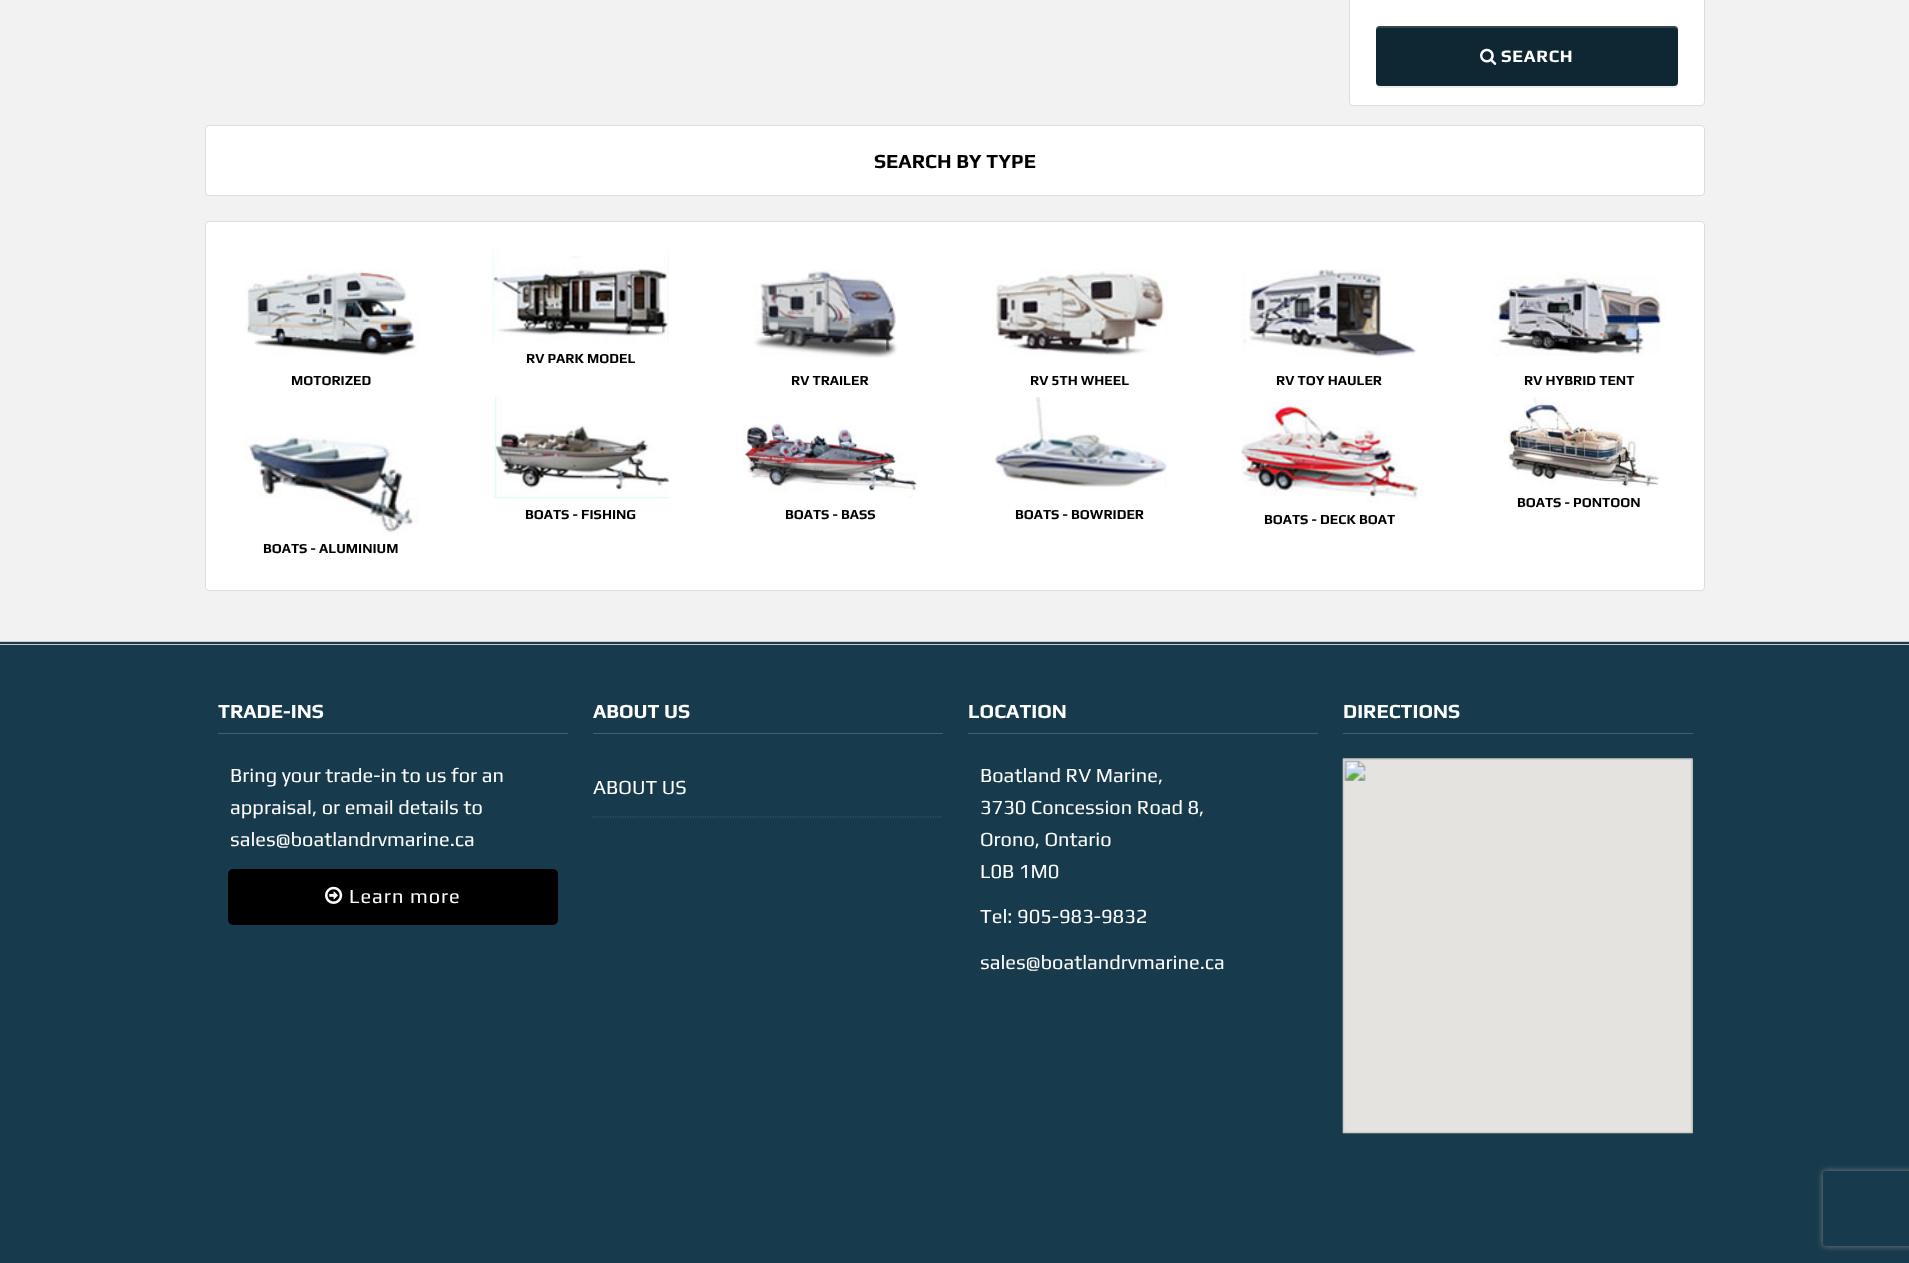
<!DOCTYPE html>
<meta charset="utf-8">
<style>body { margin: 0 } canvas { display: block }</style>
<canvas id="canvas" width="1909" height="1263"></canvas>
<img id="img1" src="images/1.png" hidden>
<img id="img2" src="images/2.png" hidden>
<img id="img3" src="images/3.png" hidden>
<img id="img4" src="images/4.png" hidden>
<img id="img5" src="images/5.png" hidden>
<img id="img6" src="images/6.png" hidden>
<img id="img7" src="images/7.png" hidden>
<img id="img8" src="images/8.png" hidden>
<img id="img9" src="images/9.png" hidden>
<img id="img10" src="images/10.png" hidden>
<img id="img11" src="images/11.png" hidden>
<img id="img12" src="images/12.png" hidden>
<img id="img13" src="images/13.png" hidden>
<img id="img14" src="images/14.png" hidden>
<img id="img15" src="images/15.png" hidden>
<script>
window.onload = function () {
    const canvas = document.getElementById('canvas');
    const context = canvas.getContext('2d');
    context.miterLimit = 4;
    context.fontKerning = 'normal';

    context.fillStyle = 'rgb(242, 242, 242)';
    context.fillRect(0, 0, 1909, 1263);
    context.fillStyle = 'rgb(255, 255, 255)';
    context.beginPath();
    context.roundRect(1349.5, -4.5, 355, 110, 3.5);
    context.fill();
    context.strokeStyle = 'rgb(221, 221, 221)';
    context.stroke();
    context.fillStyle = 'rgba(0, 0, 0, 0.07)';
    context.filter = 'blur(0.5px)';
    context.beginPath();
    context.roundRect(1376, 28, 302, 60, 4);
    context.fill();
    context.filter = 'none';
    context.fillStyle = 'rgb(15, 39, 50)';
    context.beginPath();
    context.roundRect(1376, 26, 302, 60, 4);
    context.fill();
    context.fillStyle = 'rgba(255, 255, 255, 0.15)';
    context.beginPath();
    context.moveTo(1380, 28);
    context.lineTo(1674, 28);
    context.bezierCurveTo(1676, 28, 1678, 29, 1678, 31);
    context.bezierCurveTo(1678, 28, 1677, 26, 1674, 26);
    context.lineTo(1380, 26);
    context.bezierCurveTo(1377, 26, 1376, 28, 1376, 31);
    context.bezierCurveTo(1376, 29, 1378, 28, 1380, 28);
    context.closePath();
    context.fill();
    context.drawImage(document.getElementById('img1'), 1480, 48, 17, 17);
    context.fillStyle = 'rgb(255, 255, 255)';
    context.beginPath();
    context.roundRect(205.5, 125.5, 1499, 70, 3.5);
    context.fill();
    context.stroke();
    context.beginPath();
    context.roundRect(205.5, 221.5, 1499, 369, 3.5);
    context.fill();
    context.stroke();
    context.drawImage(document.getElementById('img2'), 492, 247, 177, 96);
    context.drawImage(document.getElementById('img3'), 244, 269, 175, 87);
    context.drawImage(document.getElementById('img4'), 753, 269, 145, 89);
    context.drawImage(document.getElementById('img5'), 992, 269, 176, 87);
    context.drawImage(document.getElementById('img6'), 1241, 269, 176, 88);
    context.drawImage(document.getElementById('img7'), 1491, 273, 175, 83);
    context.drawImage(document.getElementById('img8'), 1508, 397, 152, 90);
    context.drawImage(document.getElementById('img9'), 492, 397, 177, 102);
    context.drawImage(document.getElementById('img10'), 742, 423, 176, 75);
    context.drawImage(document.getElementById('img11'), 993, 397, 175, 93);
    context.drawImage(document.getElementById('img12'), 1241, 403, 177, 100);
    context.drawImage(document.getElementById('img13'), 244, 435, 175, 98);
    context.fillStyle = 'rgb(23, 59, 76)';
    context.fillRect(0, 642, 1909, 621);
    context.fillStyle = 'rgb(204, 204, 204)';
    context.fillRect(0, 641, 1909, 1);
    context.fillRect(0, 644, 1909, 1);
    context.fillStyle = 'rgb(65, 95, 109)';
    context.fillRect(218, 733, 350, 1);
    context.fillStyle = 'rgb(0, 0, 0)';
    context.beginPath();
    context.roundRect(228, 869, 330, 56, 5);
    context.fill();
    context.drawImage(document.getElementById('img14'), 325, 886, 18, 18);
    context.fillStyle = 'rgb(65, 95, 109)';
    context.fillRect(593, 733, 350, 1);
    context.beginPath();
    context.moveTo(592.5, 817);
    context.lineTo(942.5, 817);
    context.strokeStyle = 'rgb(65, 95, 109)';
    context.lineWidth = 1.2;
    context.setLineDash([1.25, 1.25]);
    context.stroke();
    context.fillRect(968, 733, 350, 1);
    context.fillRect(1343, 733, 350, 1);
    context.drawImage(document.getElementById('img15'), 1342, 758, 351, 376);
    context.save();
    context.beginPath();
    context.moveTo(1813, 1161);
    context.lineTo(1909, 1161);
    context.lineTo(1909, 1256);
    context.lineTo(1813, 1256);
    context.closePath();
    context.moveTo(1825.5, 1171);
    context.lineTo(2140.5, 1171);
    context.bezierCurveTo(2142, 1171, 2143, 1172, 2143, 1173.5);
    context.lineTo(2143, 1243.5);
    context.bezierCurveTo(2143, 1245, 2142, 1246, 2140.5, 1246);
    context.lineTo(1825.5, 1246);
    context.bezierCurveTo(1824, 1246, 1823, 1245, 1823, 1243.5);
    context.lineTo(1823, 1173.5);
    context.bezierCurveTo(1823, 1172, 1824, 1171, 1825.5, 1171);
    context.closePath();
    context.clip('evenodd');
    context.fillStyle = 'rgb(128, 128, 128)';
    context.filter = 'blur(3px)';
    context.beginPath();
    context.roundRect(1823, 1171, 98, 75, 2.5);
    context.fill();
    context.filter = 'none';
    context.restore();
    context.letterSpacing = '0.75px';
    context.font = 'bold 17.5px Play';
    context.fillStyle = 'rgb(255, 255, 255)';
    context.fillText('SEARCH', 1501, 62);
    context.letterSpacing = '0px';
    context.font = 'bold 20px Play';
    context.fillStyle = 'rgb(0, 0, 0)';
    context.fillText('SEARCH BY TYPE', 874, 168);
    context.font = 'bold 13.75px Play';
    context.fillText('RV PARK MODEL', 526, 363);
    context.fillText('MOTORIZED', 291, 385);
    context.fillText('RV TRAILER', 791, 385);
    context.fillText('RV 5TH WHEEL', 1030, 385);
    context.fillText('RV TOY HAULER', 1276, 385);
    context.fillText('RV HYBRID TENT', 1524, 385);
    context.fillText('BOATS - PONTOON', 1517, 507);
    context.fillText('BOATS - FISHING', 525, 519);
    context.fillText('BOATS - BASS', 785, 519);
    context.fillText('BOATS - BOWRIDER', 1015, 519);
    context.fillText('BOATS - DECK BOAT', 1264, 524);
    context.fillText('BOATS - ALUMINIUM', 263, 553);
    context.font = 'bold 20px Play';
    context.fillStyle = 'rgb(255, 255, 255)';
    context.fillText('TRADE-INS', 218, 718);
    context.font = '20px Play';
    context.fillText('Bring your trade-in to us for an', 230, 782);
    context.fillText('appraisal, or email details to', 230, 814);
    context.fillText('sales@boatlandrvmarine.ca', 230, 846);
    context.letterSpacing = '1px';
    context.fillText('Learn more', 349, 903);
    context.letterSpacing = '0px';
    context.font = 'bold 20px Play';
    context.fillText('ABOUT US', 593, 718);
    context.font = '20px Play';
    context.fillText('ABOUT US', 593, 794);
    context.font = 'bold 20px Play';
    context.fillText('LOCATION', 968, 718);
    context.font = '20px Play';
    context.fillText('Boatland RV Marine,', 980, 782);
    context.fillText('3730 Concession Road 8,', 980, 814);
    context.fillText('Orono, Ontario', 980, 846);
    context.fillText('L0B 1M0', 980, 878);
    context.fillText('Tel: 905-983-9832', 980, 923);
    context.fillText('sales@boatlandrvmarine.ca', 980, 969);
    context.font = 'bold 20px Play';
    context.fillText('DIRECTIONS', 1343, 718);
};
</script>
